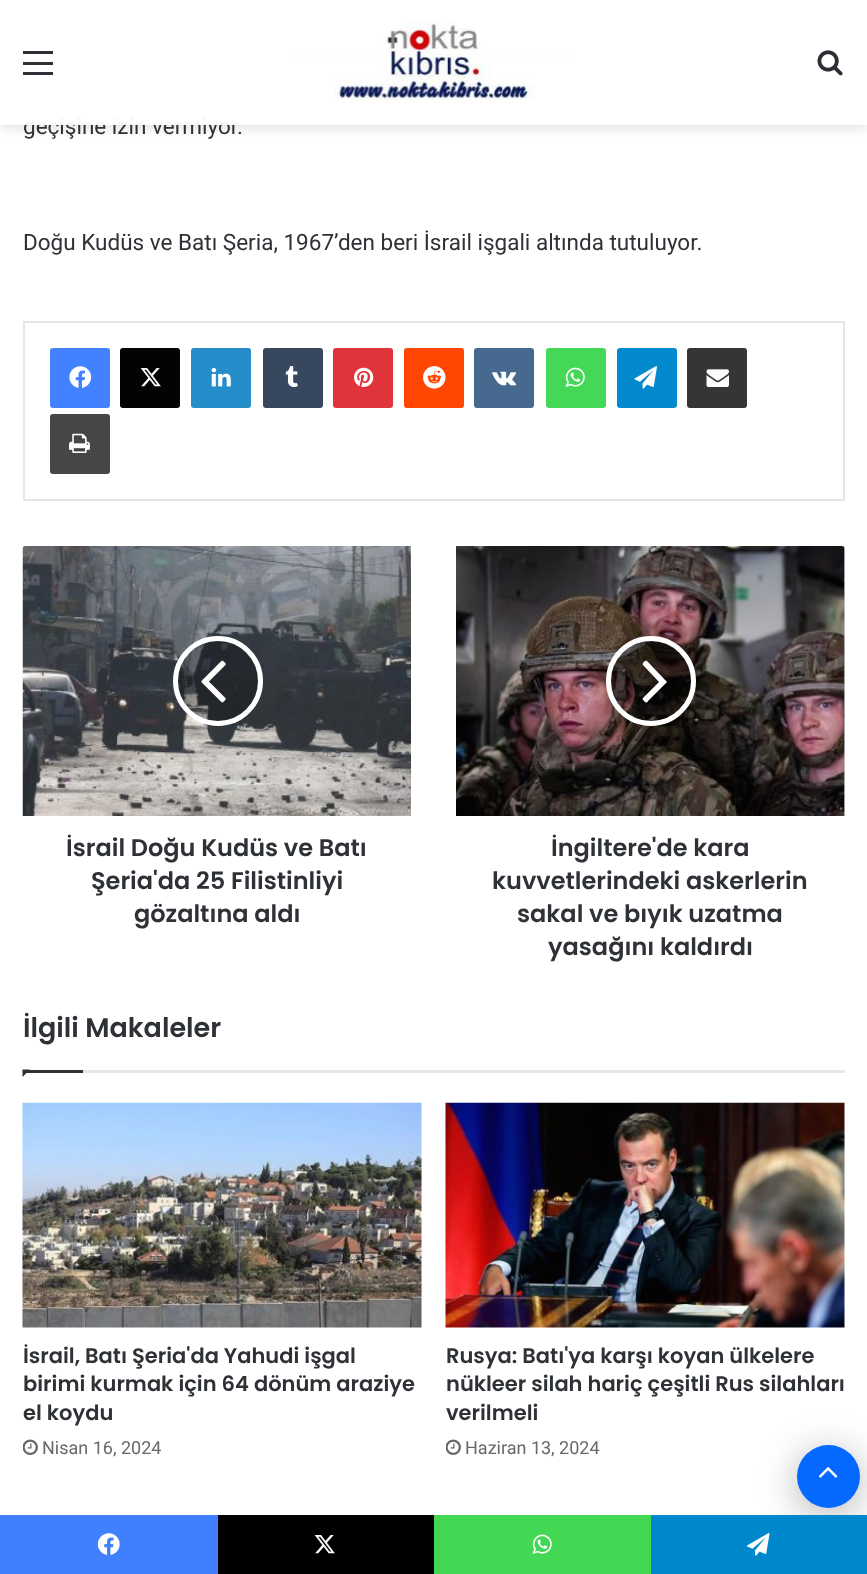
<!DOCTYPE html>
<meta charset="utf-8">
<style>body { margin: 0 } canvas { display: block }</style>
<canvas id="canvas" width="867" height="1574"></canvas>
<img id="img1" src="images/1.png" hidden>
<img id="img2" src="images/2.png" hidden>
<img id="img3" src="images/3.png" hidden>
<img id="img4" src="images/4.png" hidden>
<img id="img5" src="images/5.png" hidden>
<img id="img6" src="images/6.png" hidden>
<img id="img7" src="images/7.png" hidden>
<img id="img8" src="images/8.png" hidden>
<img id="img9" src="images/9.png" hidden>
<img id="img10" src="images/10.png" hidden>
<img id="img11" src="images/11.png" hidden>
<img id="img12" src="images/12.png" hidden>
<img id="img13" src="images/13.png" hidden>
<img id="img14" src="images/14.png" hidden>
<img id="img15" src="images/15.png" hidden>
<img id="img16" src="images/16.png" hidden>
<img id="img17" src="images/17.png" hidden>
<img id="img18" src="images/18.png" hidden>
<img id="img19" src="images/19.png" hidden>
<img id="img20" src="images/20.png" hidden>
<img id="img21" src="images/21.png" hidden>
<img id="img22" src="images/22.png" hidden>
<img id="img23" src="images/23.png" hidden>
<img id="img24" src="images/24.png" hidden>
<script>
window.onload = function () {
    const canvas = document.getElementById('canvas');
    const context = canvas.getContext('2d');
    context.miterLimit = 4;
    context.fontKerning = 'normal';

    context.fillStyle = 'rgb(255, 255, 255)';
    context.fillRect(0, 0, 867, 1574);
    context.save();
    context.beginPath();
    context.moveTo(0, 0);
    context.lineTo(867, 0);
    context.lineTo(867, 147);
    context.lineTo(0, 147);
    context.closePath();
    context.moveTo(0, 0);
    context.lineTo(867, 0);
    context.lineTo(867, 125);
    context.lineTo(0, 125);
    context.closePath();
    context.clip('evenodd');
    context.fillStyle = 'rgba(99, 99, 99, 0.2)';
    context.filter = 'blur(6px)';
    context.beginPath();
    context.rect(0, 3, 867, 125);
    context.fill();
    context.filter = 'none';
    context.restore();
    context.fillStyle = 'rgb(44, 47, 52)';
    context.fillRect(23, 62, 30, 3);
    context.fillRect(23, 51, 30, 3);
    context.fillRect(23, 72, 30, 3);
    context.drawImage(document.getElementById('img1'), 291, 21, 285, 82);
    context.drawImage(document.getElementById('img2'), 817, 50, 26, 26);
    context.strokeStyle = 'rgb(230, 230, 230)';
    context.lineWidth = 2;
    context.strokeRect(24, 322, 820, 178);
    context.fillStyle = 'rgb(66, 129, 255)';
    context.beginPath();
    context.roundRect(50, 348, 60, 60, 3);
    context.fill();
    context.drawImage(document.getElementById('img3'), 69, 366, 23, 22);
    context.fillStyle = 'rgb(3, 3, 3)';
    context.beginPath();
    context.roundRect(120, 348, 60, 60, 3);
    context.fill();
    context.drawImage(document.getElementById('img4'), 140, 368, 21, 19);
    context.fillStyle = 'rgb(37, 141, 201)';
    context.beginPath();
    context.roundRect(191, 348, 60, 60, 3);
    context.fill();
    context.drawImage(document.getElementById('img5'), 211, 368, 20, 19);
    context.fillStyle = 'rgb(55, 72, 94)';
    context.beginPath();
    context.roundRect(263, 348, 60, 60, 3);
    context.fill();
    context.drawImage(document.getElementById('img6'), 285, 366, 13, 21);
    context.fillStyle = 'rgb(225, 51, 58)';
    context.beginPath();
    context.roundRect(333, 348, 60, 60, 3);
    context.fill();
    context.drawImage(document.getElementById('img7'), 354, 367, 20, 20);
    context.fillStyle = 'rgb(255, 71, 3)';
    context.beginPath();
    context.roundRect(404, 348, 60, 60, 3);
    context.fill();
    context.drawImage(document.getElementById('img8'), 423, 366, 23, 23);
    context.fillStyle = 'rgb(71, 104, 143)';
    context.beginPath();
    context.roundRect(474, 348, 60, 60, 3);
    context.fill();
    context.drawImage(document.getElementById('img9'), 492, 371, 25, 15);
    context.fillStyle = 'rgb(69, 216, 86)';
    context.beginPath();
    context.roundRect(546, 348, 60, 60, 3);
    context.fill();
    context.drawImage(document.getElementById('img10'), 565, 367, 20, 20);
    context.fillStyle = 'rgb(3, 137, 205)';
    context.beginPath();
    context.roundRect(617, 348, 60, 60, 3);
    context.fill();
    context.drawImage(document.getElementById('img11'), 634, 366, 23, 23);
    context.fillStyle = 'rgb(53, 53, 53)';
    context.beginPath();
    context.roundRect(687, 348, 60, 60, 3);
    context.fill();
    context.drawImage(document.getElementById('img12'), 706, 369, 23, 18);
    context.fillStyle = 'rgb(70, 70, 70)';
    context.beginPath();
    context.roundRect(50, 414, 60, 60, 3);
    context.fill();
    context.drawImage(document.getElementById('img13'), 69, 433, 21, 20);
    context.drawImage(document.getElementById('img14'), 22, 546, 389, 270);
    context.fillStyle = 'rgba(3, 3, 3, 0.3)';
    context.beginPath();
    context.arc(218, 681, 42.5, 0, 2 * Math.PI);
    context.fill();
    context.strokeStyle = 'rgb(255, 255, 255)';
    context.lineWidth = 5;
    context.stroke();
    context.drawImage(document.getElementById('img15'), 201, 660, 25, 43);
    context.fillStyle = 'rgb(205, 205, 205)';
    context.beginPath();
    context.roundRect(456, 546, 389, 270, [0, 3, 0, 0]);
    context.fill();
    context.drawImage(document.getElementById('img16'), 456, 546, 389, 270);
    context.fillStyle = 'rgba(3, 3, 3, 0.3)';
    context.beginPath();
    context.arc(651, 681, 42.5, 0, 2 * Math.PI);
    context.fill();
    context.stroke();
    context.fillStyle = 'rgb(255, 255, 255)';
    context.beginPath();
    context.moveTo(667, 682);
    context.lineTo(650, 699);
    context.bezierCurveTo(647, 702, 647, 704, 644, 701);
    context.bezierCurveTo(643, 700, 642, 699, 643, 698);
    context.lineTo(659, 682);
    context.lineTo(643, 665);
    context.bezierCurveTo(642, 663, 645, 660, 647, 661);
    context.closePath();
    context.fill();
    context.fillStyle = 'rgb(230, 230, 230)';
    context.fillRect(83, 1070, 762, 3);
    context.fillStyle = 'rgb(46, 49, 54)';
    context.beginPath();
    context.moveTo(22.5, 1069.5);
    context.lineTo(30, 1069.5);
    context.lineTo(22.5, 1077);
    context.closePath();
    context.fill();
    context.fillRect(23, 1070, 60, 3);
    context.drawImage(document.getElementById('img17'), 22, 1102, 400, 226);
    context.drawImage(document.getElementById('img18'), 23, 1439, 15, 16);
    context.drawImage(document.getElementById('img19'), 445, 1102, 400, 226);
    context.drawImage(document.getElementById('img18'), 446, 1439, 15, 16);
    context.fillStyle = 'rgba(0, 0, 0, 0.3)';
    context.filter = 'blur(19px)';
    context.beginPath();
    context.roundRect(797, 1452, 63, 63, 31.5);
    context.fill();
    context.filter = 'none';
    context.fillStyle = 'rgb(6, 105, 255)';
    context.beginPath();
    context.arc(828.5, 1476.5, 31.5, 0, 2 * Math.PI);
    context.fill();
    context.drawImage(document.getElementById('img20'), 818, 1467, 20, 11);
    context.fillStyle = 'rgb(64, 128, 255)';
    context.fillRect(0, 1515, 218, 59);
    context.drawImage(document.getElementById('img21'), 97, 1533, 23, 22);
    context.fillStyle = 'rgb(0, 0, 0)';
    context.fillRect(218, 1515, 216, 59);
    context.drawImage(document.getElementById('img22'), 314, 1535, 21, 19);
    context.fillStyle = 'rgb(67, 216, 84)';
    context.fillRect(434, 1515, 217, 59);
    context.drawImage(document.getElementById('img23'), 532, 1534, 20, 20);
    context.fillStyle = 'rgb(0, 136, 204)';
    context.fillRect(651, 1515, 216, 59);
    context.drawImage(document.getElementById('img24'), 747, 1533, 23, 23);
    context.font = '22.5px Roboto';
    context.fillStyle = 'rgb(46, 49, 54)';
    context.fillText('geçişine izin vermiyor.', 23, 134);
    context.fillStyle = 'rgba(255, 255, 255, 0.95)';
    context.fillRect(0, 117, 867, 8);
    context.fillStyle = 'rgb(46, 49, 54)';
    context.fillText('Doğu Kudüs ve Batı Şeria, 1967’den beri İsrail işgali altında tutuluyor.', 23, 250);
    context.font = '600 24px Poppins';
    context.fillText('İsrail Doğu Kudüs ve Batı', 66, 856);
    context.fillText('Şeria\'da 25 Filistinliyi', 91, 889);
    context.fillText('gözaltına aldı', 134, 922);
    context.fillText('İngiltere\'de kara', 551, 856);
    context.fillText('kuvvetlerindeki askerlerin', 492, 889);
    context.fillText('sakal ve bıyık uzatma', 517, 922);
    context.fillText('yasağını kaldırdı', 548, 955);
    context.font = '600 27px Poppins';
    context.fillText('İlgili Makaleler', 23, 1037);
    context.font = '600 21px Poppins';
    context.fillText('İsrail, Batı Şeria\'da Yahudi işgal', 23, 1363);
    context.fillText('birimi kurmak için 64 dönüm araziye', 23, 1391);
    context.fillText('el koydu', 23, 1420);
    context.font = '18px Roboto';
    context.fillStyle = 'rgb(104, 104, 104)';
    context.fillText('Nisan 16, 2024', 42, 1454);
    context.font = '600 21px Poppins';
    context.fillStyle = 'rgb(46, 49, 54)';
    context.fillText('Rusya: Batı\'ya karşı koyan ülkelere', 446, 1363);
    context.fillText('nükleer silah hariç çeşitli Rus silahları', 446, 1391);
    context.fillText('verilmeli', 446, 1420);
    context.font = '18px Roboto';
    context.fillStyle = 'rgb(104, 104, 104)';
    context.fillText('Haziran 13, 2024', 465, 1454);
};
</script>
